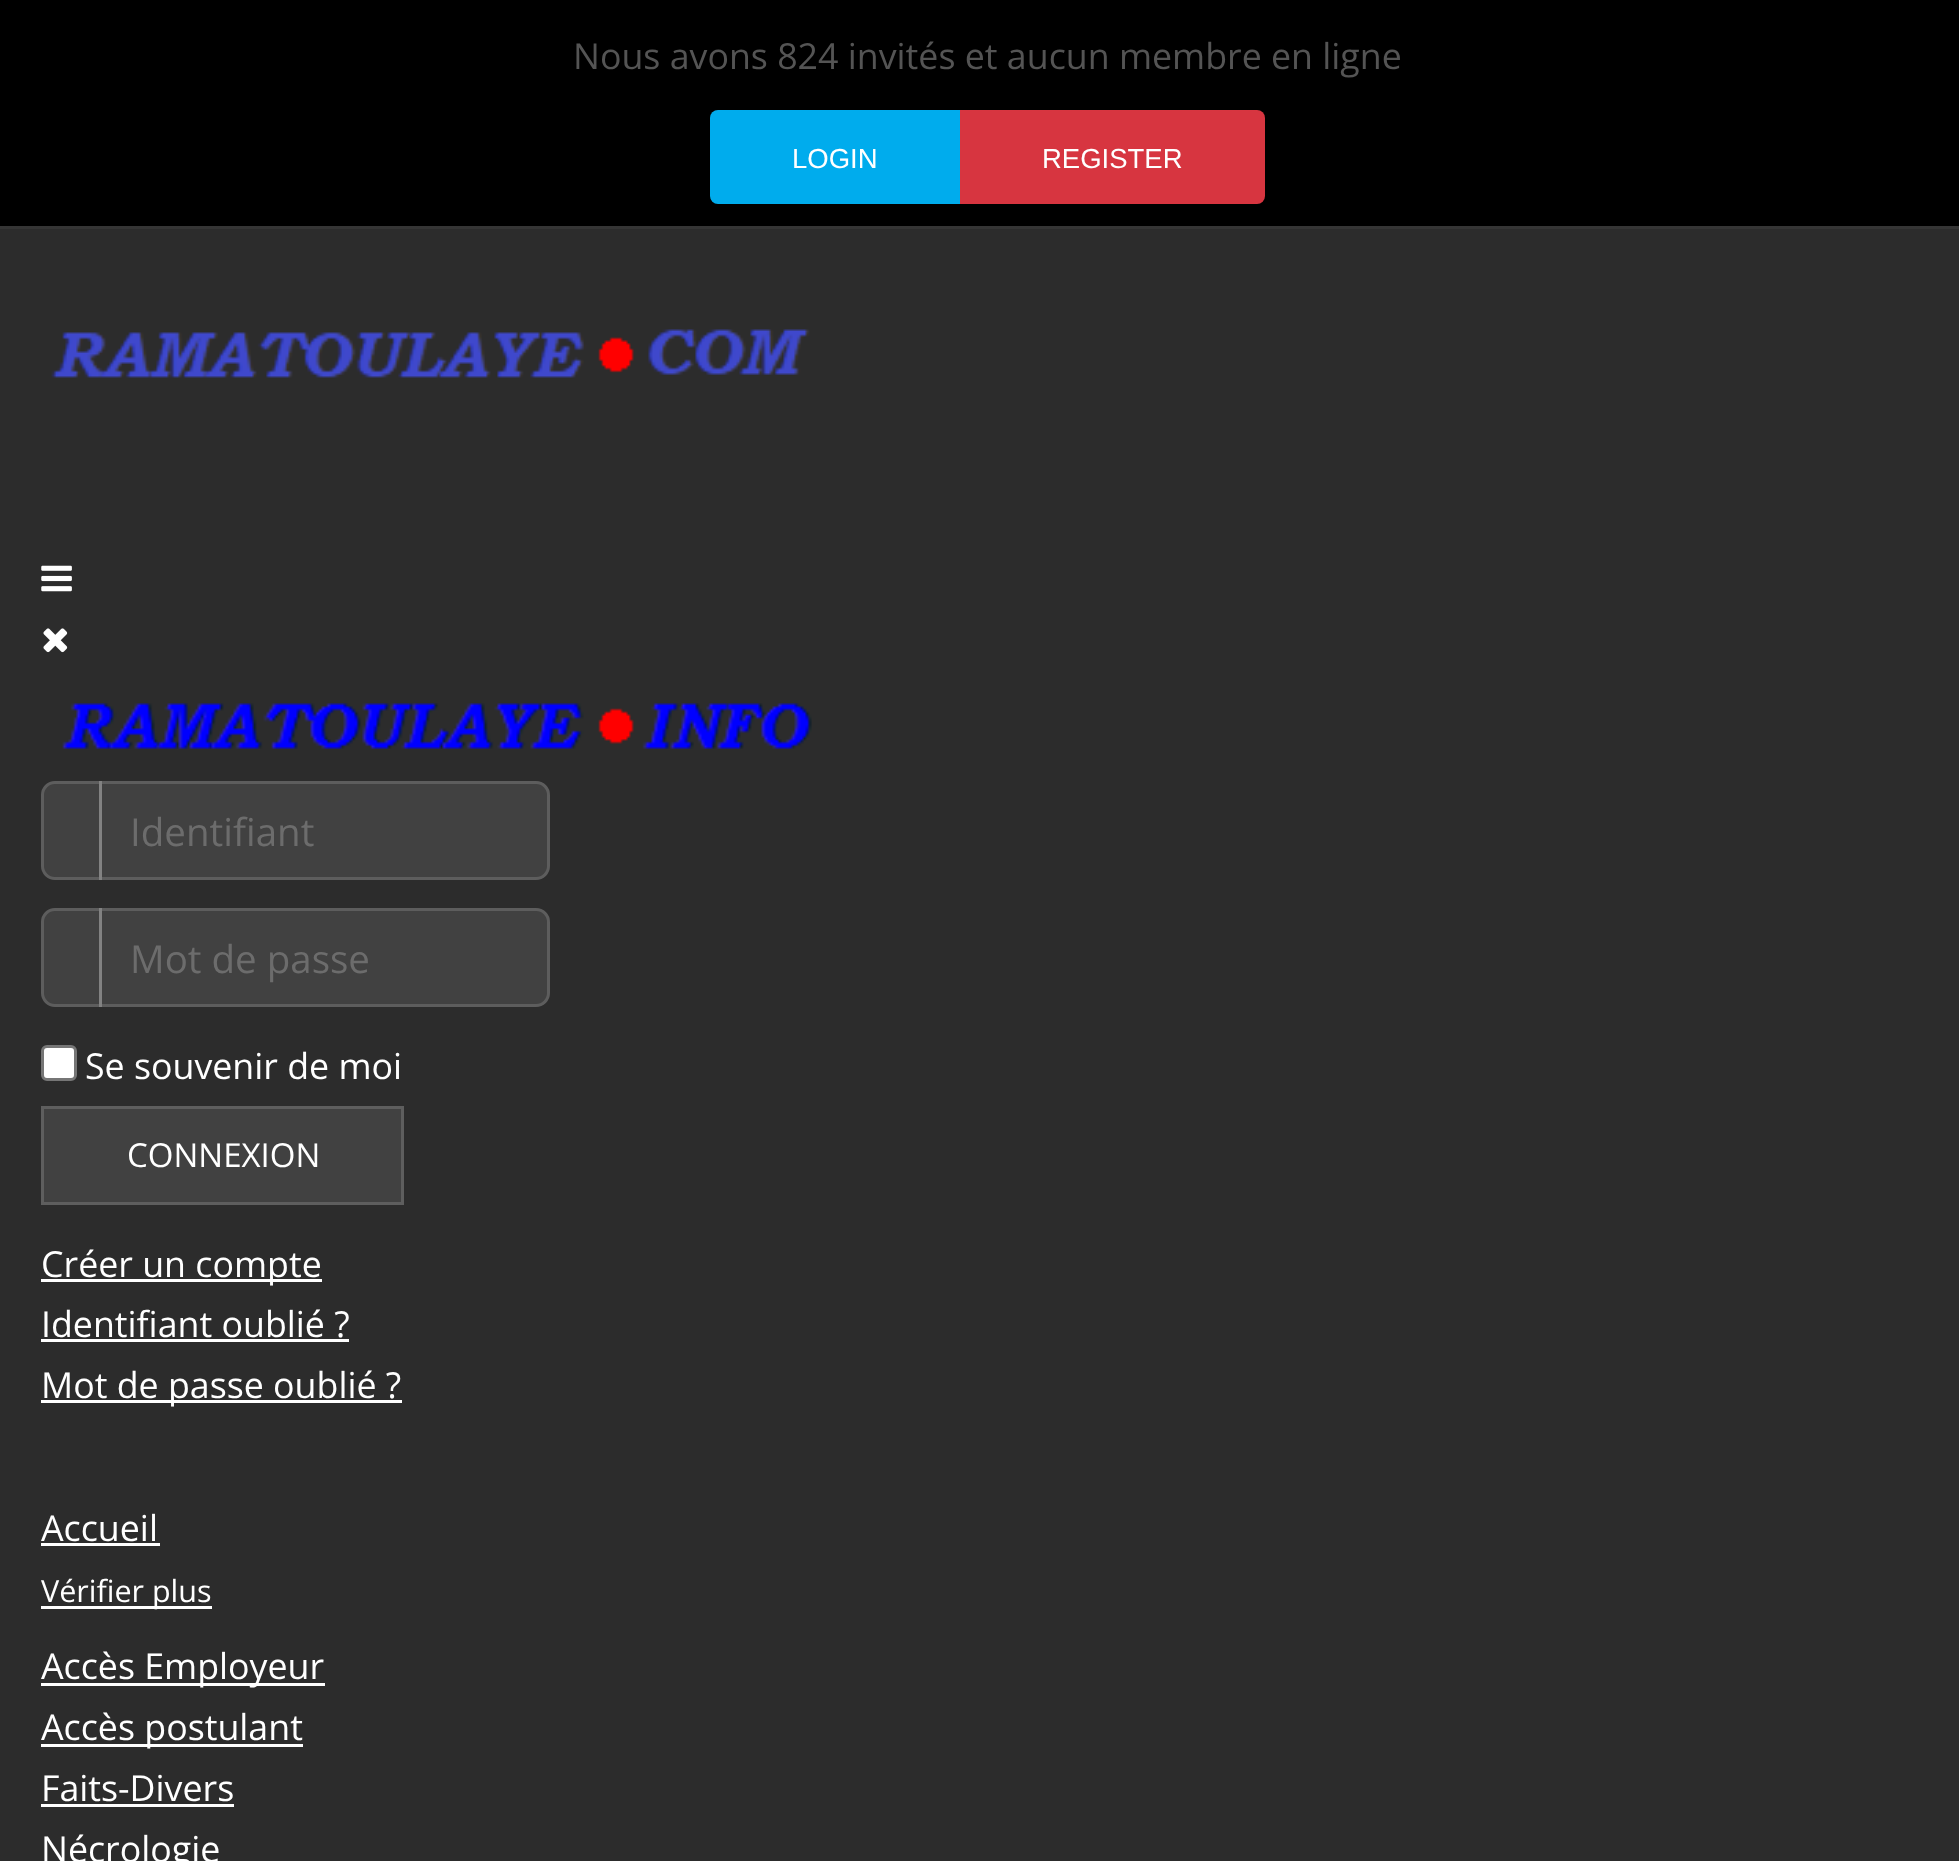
<!DOCTYPE html>
<meta charset="utf-8">
<style>body { margin: 0 } canvas { display: block }</style>
<canvas id="canvas" width="1959" height="1861"></canvas>
<img id="img1" src="images/1.png" hidden>
<img id="img2" src="images/2.png" hidden>
<img id="img3" src="images/3.png" hidden>
<img id="img4" src="images/4.png" hidden>
<script>
window.onload = function () {
    const canvas = document.getElementById('canvas');
    const context = canvas.getContext('2d');
    context.miterLimit = 4;
    context.fontKerning = 'normal';

    context.fillStyle = 'rgb(0, 0, 0)';
    context.fillRect(0, 0, 1959, 1861);
    context.fillStyle = 'rgb(0, 172, 237)';
    context.beginPath();
    context.roundRect(710, 110, 250, 94, [8, 0, 0, 8]);
    context.fill();
    context.fillStyle = 'rgb(215, 53, 64)';
    context.beginPath();
    context.roundRect(960, 110, 305, 94, [0, 8, 8, 0]);
    context.fill();
    context.fillStyle = 'rgb(44, 44, 44)';
    context.fillRect(0, 229, 1959, 1632);
    context.fillStyle = 'rgb(53, 53, 53)';
    context.fillRect(0, 226, 1959, 3);
    context.drawImage(document.getElementById('img1'), 51, 329, 759, 49);
    context.drawImage(document.getElementById('img2'), 41, 565, 31, 27);
    context.drawImage(document.getElementById('img3'), 43, 628, 25, 25);
    context.drawImage(document.getElementById('img4'), 62, 703, 750, 46);
    context.fillStyle = 'rgb(65, 65, 65)';
    context.beginPath();
    context.roundRect(41, 781, 61, 99, [14, 0, 0, 14]);
    context.fill();
    context.beginPath();
    context.roundRect(42.5, 782.5, 58, 96, [12.5, 0, 0, 12.5]);
    context.strokeStyle = 'rgba(255, 255, 255, 0.15)';
    context.lineWidth = 3;
    context.stroke();
    context.fillStyle = 'rgba(255, 255, 255, 0.1)';
    context.beginPath();
    context.roundRect(99, 781, 451, 99, [0, 14, 14, 0]);
    context.fill();
    context.beginPath();
    context.roundRect(100.5, 782.5, 448, 96, [0, 12.5, 12.5, 0]);
    context.stroke();
    context.fillStyle = 'rgb(65, 65, 65)';
    context.beginPath();
    context.roundRect(41, 908, 61, 99, [14, 0, 0, 14]);
    context.fill();
    context.beginPath();
    context.roundRect(42.5, 909.5, 58, 96, [12.5, 0, 0, 12.5]);
    context.stroke();
    context.fillStyle = 'rgba(255, 255, 255, 0.1)';
    context.beginPath();
    context.roundRect(99, 908, 451, 99, [0, 14, 14, 0]);
    context.fill();
    context.beginPath();
    context.roundRect(100.5, 909.5, 448, 96, [0, 12.5, 12.5, 0]);
    context.stroke();
    context.fillStyle = 'rgb(255, 255, 255)';
    context.beginPath();
    context.roundRect(42.5, 1046.5, 33, 33, 4.5);
    context.fill();
    context.strokeStyle = 'rgb(118, 118, 118)';
    context.stroke();
    context.fillStyle = 'rgb(65, 65, 65)';
    context.beginPath();
    context.rect(42.5, 1107.5, 360, 96);
    context.fill();
    context.strokeStyle = 'rgb(94, 94, 94)';
    context.stroke();
    context.fillStyle = 'rgb(255, 255, 255)';
    context.fillRect(41, 1279, 281, 3);
    context.fillRect(41, 1339, 308, 3);
    context.fillRect(41, 1400, 361, 3);
    context.fillRect(41, 1543, 119, 3);
    context.fillRect(41, 1606, 171, 3);
    context.fillRect(41, 1683, 284, 3);
    context.fillRect(41, 1744, 262, 3);
    context.fillRect(41, 1804, 193, 3);
    context.font = '35.75px Open Sans';
    context.fillStyle = 'rgb(84, 84, 84)';
    context.fillText('Nous avons 824 invités et aucun membre en ligne', 573, 69);
    context.font = '27.5px Liberation Sans';
    context.fillStyle = 'rgb(255, 255, 255)';
    context.fillText('LOGIN', 792, 168);
    context.fillText('REGISTER', 1042, 168);
    context.font = '38.5px Open Sans';
    context.fillStyle = 'rgb(108, 108, 108)';
    context.fillText('Identifiant', 130, 846);
    context.fillText('Mot de passe', 130, 973);
    context.font = '35.75px Open Sans';
    context.fillStyle = 'rgb(255, 255, 255)';
    context.fillText('Se souvenir de moi', 85, 1079);
    context.font = '33px Open Sans';
    context.fillText('CONNEXION', 127, 1167);
    context.font = '35.75px Open Sans';
    context.fillText('Créer un compte', 41, 1277);
    context.fillText('Identifiant oublié ?', 41, 1337);
    context.fillText('Mot de passe oublié ?', 41, 1398);
    context.fillText('Accueil', 41, 1541);
    context.font = '30.5px Open Sans';
    context.fillText('Vérifier plus', 41, 1602);
    context.font = '35.75px Open Sans';
    context.fillText('Accès Employeur', 41, 1679);
    context.fillText('Accès postulant', 41, 1740);
    context.fillText('Faits-Divers', 41, 1801);
    context.fillText('Nécrologie', 41, 1862);
};
</script>
